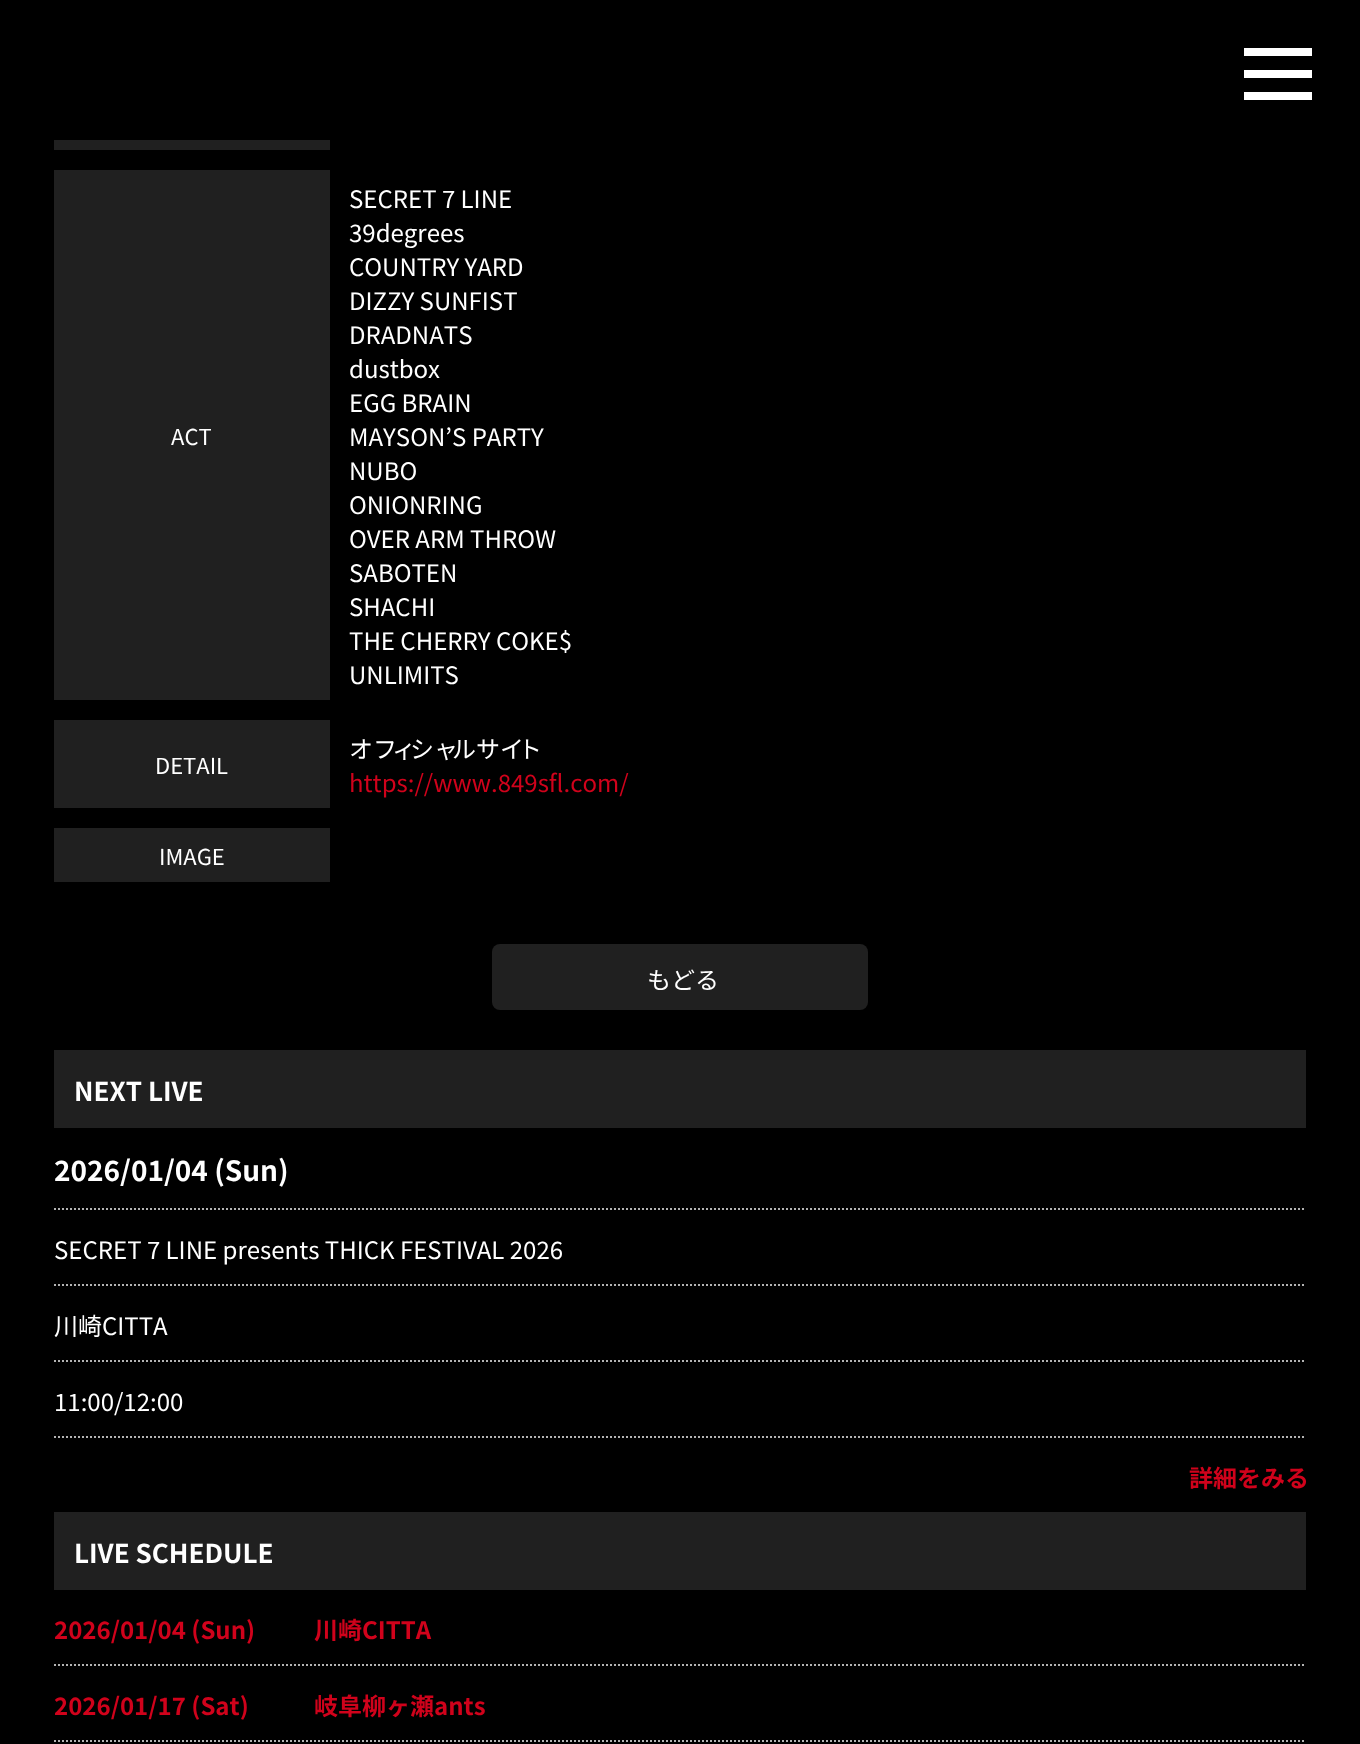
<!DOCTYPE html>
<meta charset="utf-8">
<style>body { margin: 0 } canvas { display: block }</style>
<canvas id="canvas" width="1360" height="1744"></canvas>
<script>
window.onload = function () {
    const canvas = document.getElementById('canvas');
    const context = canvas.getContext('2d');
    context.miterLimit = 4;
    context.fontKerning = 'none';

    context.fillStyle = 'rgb(0, 0, 0)';
    context.fillRect(0, 0, 1360, 1744);
    context.fillStyle = 'rgb(255, 255, 255)';
    context.fillRect(1244, 48, 68, 8);
    context.fillRect(1244, 70, 68, 8);
    context.fillRect(1244, 92, 68, 8);
    context.fillStyle = 'rgb(32, 32, 32)';
    context.fillRect(54, 140, 276, 10);
    context.fillRect(54, 170, 276, 530);
    context.fillRect(54, 720, 276, 88);
    context.fillRect(54, 828, 276, 54);
    context.beginPath();
    context.roundRect(492, 944, 376, 66, 8);
    context.fill();
    context.fillRect(54, 1050, 1252, 78);
    context.beginPath();
    context.moveTo(54, 1209);
    context.lineTo(1306, 1209);
    context.strokeStyle = 'rgb(179, 179, 179)';
    context.lineWidth = 2;
    context.setLineDash([2, 2]);
    context.stroke();
    context.beginPath();
    context.moveTo(54, 1285);
    context.lineTo(1306, 1285);
    context.stroke();
    context.beginPath();
    context.moveTo(54, 1361);
    context.lineTo(1306, 1361);
    context.stroke();
    context.beginPath();
    context.moveTo(54, 1437);
    context.lineTo(1306, 1437);
    context.stroke();
    context.fillRect(54, 1512, 1252, 78);
    context.beginPath();
    context.moveTo(54, 1665);
    context.lineTo(1306, 1665);
    context.stroke();
    context.beginPath();
    context.moveTo(54, 1741);
    context.lineTo(1306, 1741);
    context.stroke();
    context.font = '22px Noto Sans JP';
    context.fillStyle = 'rgb(255, 255, 255)';
    context.fillText('ACT', 171, 445);
    context.font = '24px Noto Sans JP';
    context.fillText('SECRET 7 LINE', 349, 208);
    context.fillText('39degrees', 349, 242);
    context.fillText('COUNTRY YARD', 349, 276);
    context.fillText('DIZZY SUNFIST', 349, 310);
    context.fillText('DRADNATS', 349, 344);
    context.fillText('dustbox', 349, 378);
    context.fillText('EGG BRAIN', 349, 412);
    context.fillText('MAYSON’S PARTY', 349, 446);
    context.fillText('NUBO', 349, 480);
    context.fillText('ONIONRING', 349, 514);
    context.fillText('OVER ARM THROW', 349, 548);
    context.fillText('SABOTEN', 349, 582);
    context.fillText('SHACHI', 349, 616);
    context.fillText('THE CHERRY COKE$', 349, 650);
    context.fillText('UNLIMITS', 349, 684);
    context.font = '22px Noto Sans JP';
    context.fillText('DETAIL', 155, 774);
    context.font = '24px Noto Sans JP';
    context.fillText('オフ', 349, 758);
    context.fillText('ィ', 392, 758);
    context.fillText('シャ', 410, 758);
    context.fillText('ルサイ', 452, 758);
    context.fillText('ト', 518, 758);
    context.fillStyle = 'rgb(208, 2, 27)';
    context.fillText('https://www.849sfl.com/', 349, 792);
    context.font = '22px Noto Sans JP';
    context.fillStyle = 'rgb(255, 255, 255)';
    context.fillText('IMAGE', 159, 865);
    context.font = '24px Noto Sans JP';
    context.fillText('もどる', 647, 989);
    context.font = 'bold 26px Noto Sans JP';
    context.fillText('NEXT LIVE', 74, 1101);
    context.font = 'bold 28px Noto Sans JP';
    context.fillText('2026/01/04 (Sun)', 54, 1181);
    context.font = '24px Noto Sans JP';
    context.fillText('SECRET 7 LINE presents THICK FESTIVAL 2026', 54, 1259);
    context.fillText('川崎CITTA', 54, 1335);
    context.fillText('11:00/12:00', 54, 1411);
    context.font = 'bold 24px Noto Sans JP';
    context.fillStyle = 'rgb(208, 2, 27)';
    context.fillText('詳細をみる', 1189, 1487);
    context.font = 'bold 26px Noto Sans JP';
    context.fillStyle = 'rgb(255, 255, 255)';
    context.fillText('LIVE SCHEDULE', 74, 1563);
    context.font = 'bold 24px Noto Sans JP';
    context.fillStyle = 'rgb(208, 2, 27)';
    context.fillText('2026/01/04 (Sun)', 54, 1639);
    context.fillText('川崎CITTA', 314, 1639);
    context.fillText('2026/01/17 (Sat)', 54, 1715);
    context.fillText('岐阜柳ヶ瀬ants', 314, 1715);
};
</script>
